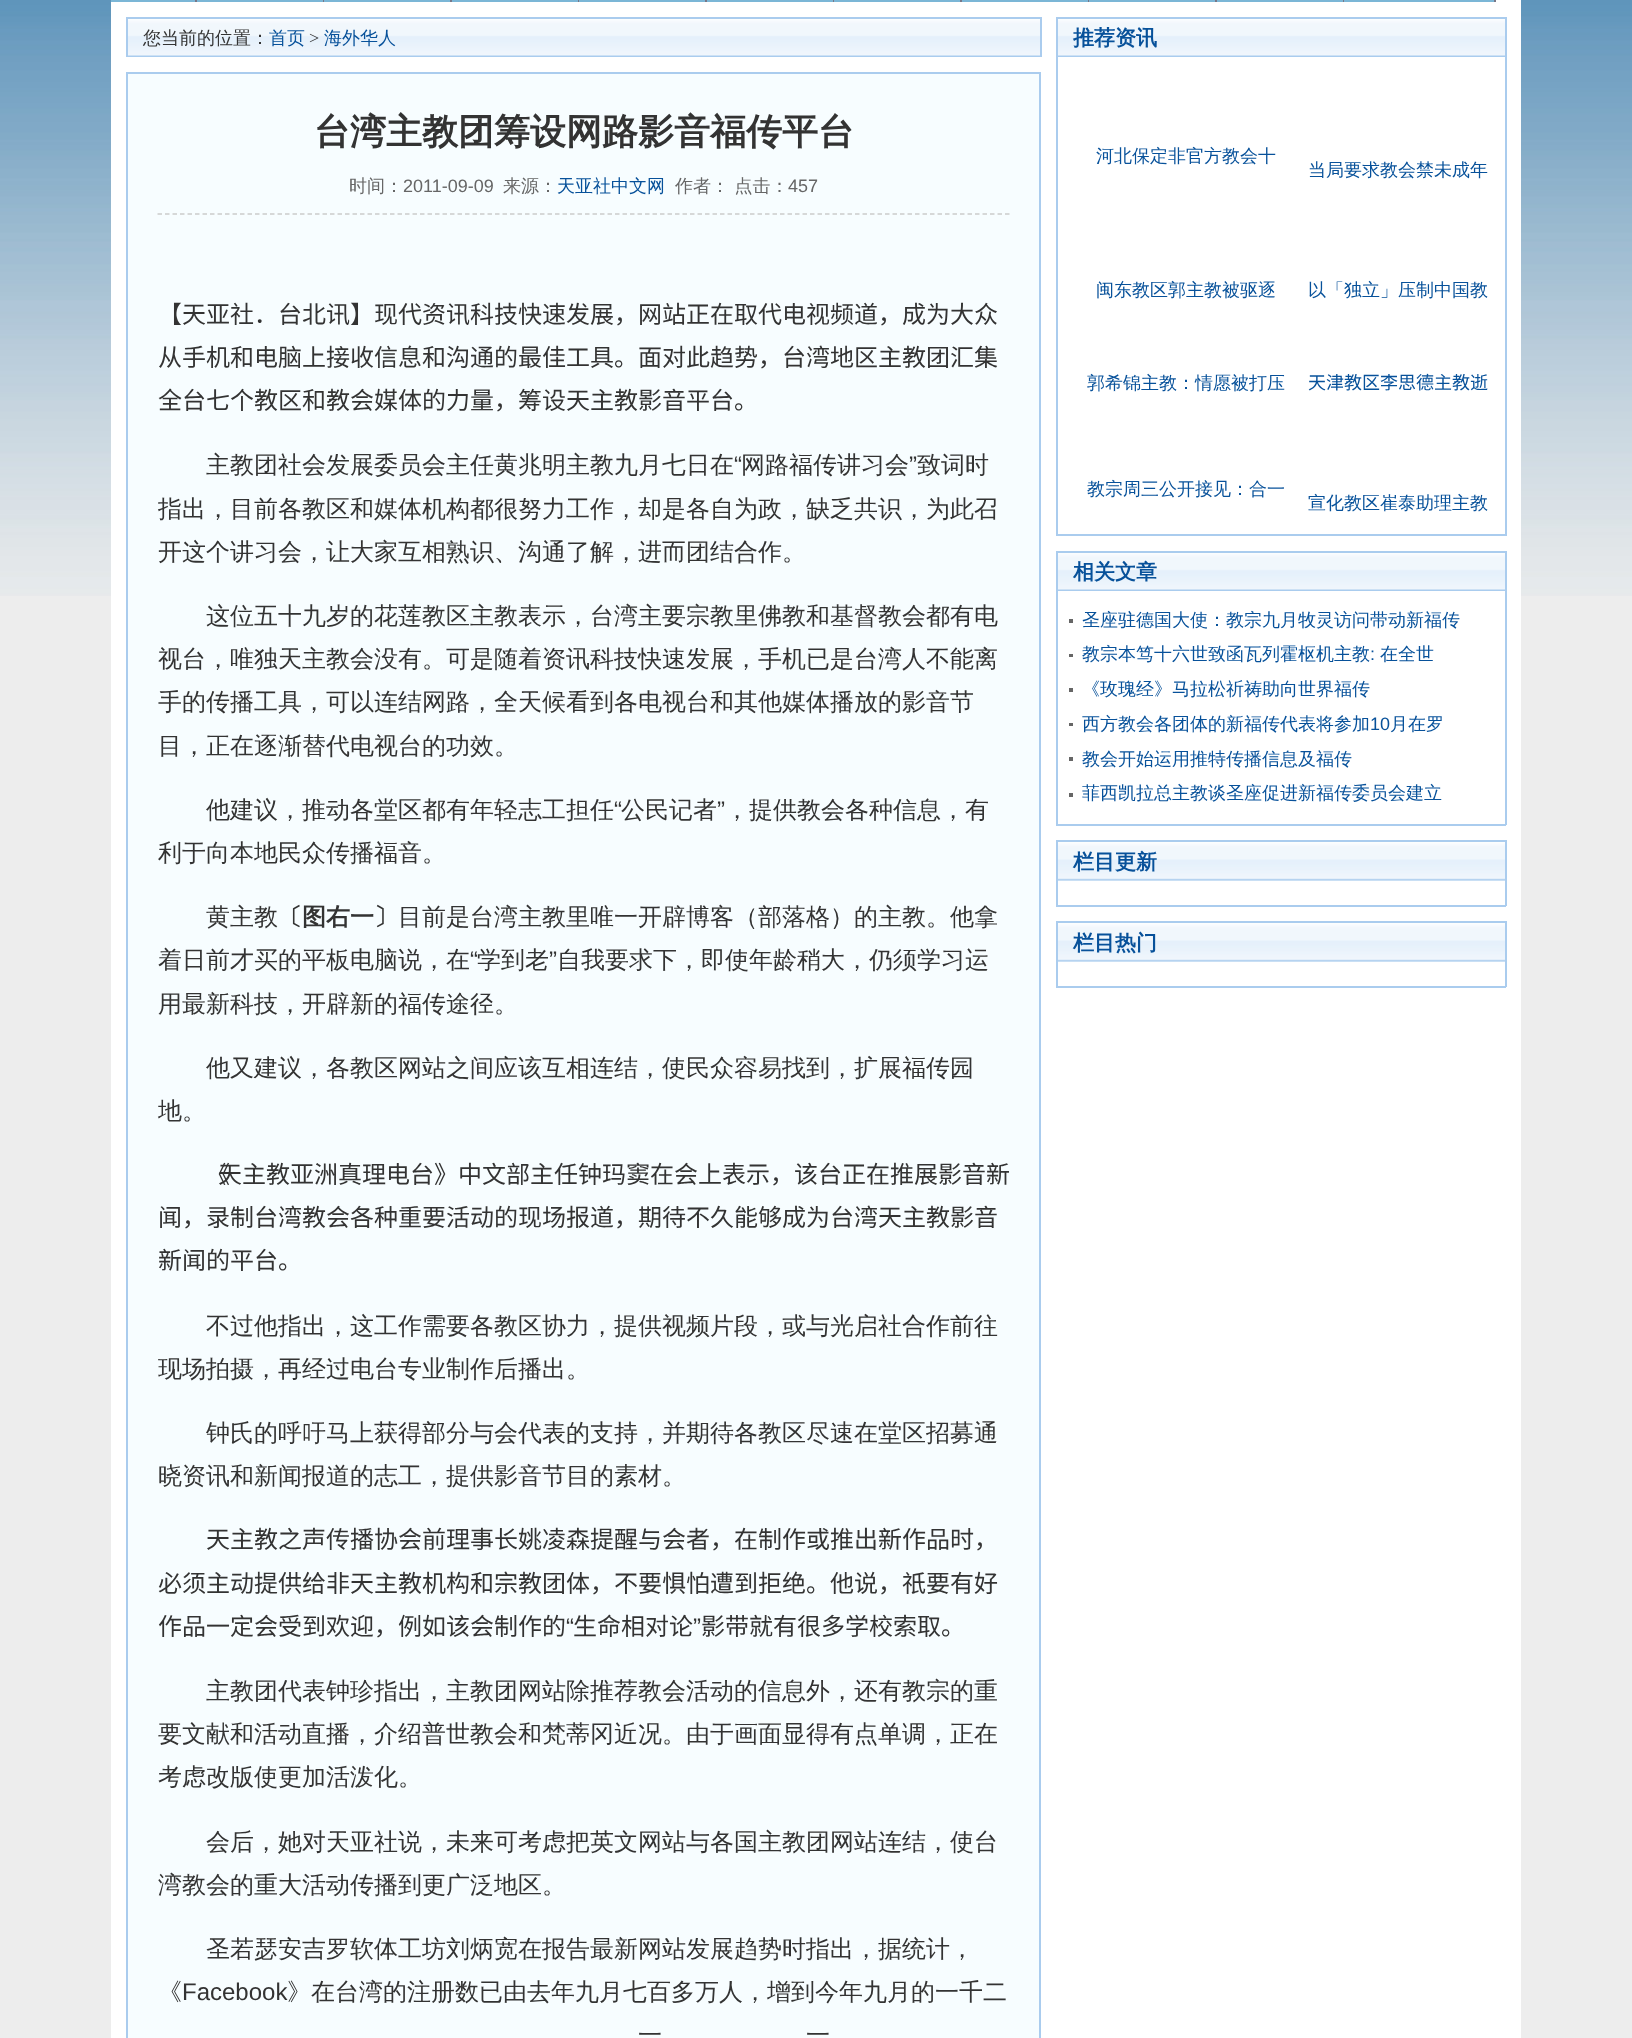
<!DOCTYPE html>
<meta charset="utf-8">
<style>body { margin: 0 } canvas { display: block }</style>
<canvas id="canvas" width="1632" height="2038"></canvas>
<img id="img1" src="images/1.png" hidden>
<img id="img2" src="images/2.png" hidden>
<img id="img3" src="images/3.png" hidden>
<img id="img4" src="images/4.png" hidden>
<script>
window.onload = function () {
    const canvas = document.getElementById('canvas');
    const context = canvas.getContext('2d');
    context.miterLimit = 4;
    context.fontKerning = 'normal';

    context.fillStyle = 'rgb(237, 237, 237)';
    context.fillRect(0, 0, 1632, 2038);
    context.drawImage(document.getElementById('img1'), 0, 0, 1632, 596);
    context.fillStyle = 'rgb(255, 255, 255)';
    context.fillRect(111, 0, 1410, 2038);
    context.fillStyle = 'rgb(123, 182, 214)';
    context.fillRect(111, 0, 213, 2);
    context.fillStyle = 'rgb(119, 119, 136)';
    context.fillRect(195, 0, 2, 2);
    context.fillRect(323, 0, 2, 2);
    context.fillStyle = 'rgb(123, 182, 214)';
    context.fillRect(324, 0, 255, 2);
    context.fillStyle = 'rgb(119, 119, 136)';
    context.fillRect(450, 0, 2, 2);
    context.fillRect(578, 0, 2, 2);
    context.fillStyle = 'rgb(123, 182, 214)';
    context.fillRect(579, 0, 255, 2);
    context.fillStyle = 'rgb(119, 119, 136)';
    context.fillRect(705, 0, 2, 2);
    context.fillRect(833, 0, 2, 2);
    context.fillStyle = 'rgb(123, 182, 214)';
    context.fillRect(834, 0, 255, 2);
    context.fillStyle = 'rgb(119, 119, 136)';
    context.fillRect(960, 0, 2, 2);
    context.fillRect(1088, 0, 2, 2);
    context.fillStyle = 'rgb(123, 182, 214)';
    context.fillRect(1089, 0, 255, 2);
    context.fillStyle = 'rgb(119, 119, 136)';
    context.fillRect(1215, 0, 2, 2);
    context.fillRect(1343, 0, 2, 2);
    context.fillStyle = 'rgb(123, 182, 214)';
    context.fillRect(1344, 0, 152, 2);
    context.fillStyle = 'rgb(119, 119, 136)';
    context.fillRect(1494, 0, 2, 2);
    context.drawImage(document.getElementById('img2'), 128, 19, 912, 38);
    context.fillStyle = 'rgb(170, 204, 238)';
    context.fillRect(126, 17, 915, 2);
    context.fillRect(1040, 17, 2, 40);
    context.fillRect(126, 17, 2, 40);
    context.fillStyle = 'rgb(247, 253, 255)';
    context.beginPath();
    context.rect(127, 73, 913, 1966);
    context.fill();
    context.strokeStyle = 'rgb(170, 204, 238)';
    context.lineWidth = 2;
    context.stroke();
    context.beginPath();
    context.moveTo(157.5, 214);
    context.lineTo(1009.5, 214);
    context.strokeStyle = 'rgb(204, 204, 204)';
    context.lineWidth = 1.5;
    context.setLineDash([4.5, 3]);
    context.stroke();
    context.drawImage(document.getElementById('img3'), 1058, 19, 447, 38);
    context.fillStyle = 'rgb(170, 204, 238)';
    context.fillRect(1056, 17, 450, 2);
    context.fillRect(1505, 17, 2, 519);
    context.fillRect(1056, 17, 2, 40);
    context.fillRect(1056, 534, 450, 2);
    context.fillRect(1056, 57, 2, 479);
    context.drawImage(document.getElementById('img3'), 1058, 553, 447, 38);
    context.fillRect(1056, 551, 450, 2);
    context.fillRect(1505, 551, 2, 274);
    context.fillRect(1056, 551, 2, 40);
    context.fillRect(1056, 824, 450, 2);
    context.fillRect(1056, 591, 2, 234);
    context.fillStyle = 'rgb(102, 102, 102)';
    context.fillRect(1069, 619, 4, 4);
    context.fillRect(1069, 654, 4, 3);
    context.fillRect(1069, 688, 4, 4);
    context.fillRect(1069, 723, 4, 3);
    context.fillRect(1069, 757, 4, 4);
    context.fillRect(1069, 793, 4, 4);
    context.fillStyle = 'rgb(233, 242, 251)';
    context.fillRect(1058, 880, 447, 1);
    context.drawImage(document.getElementById('img4'), 1058, 842, 447, 39);
    context.fillStyle = 'rgb(170, 204, 238)';
    context.fillRect(1056, 840, 450, 2);
    context.fillRect(1505, 840, 2, 66);
    context.fillRect(1056, 840, 2, 41);
    context.fillRect(1056, 905, 450, 2);
    context.fillRect(1056, 881, 2, 25);
    context.fillStyle = 'rgb(233, 242, 251)';
    context.fillRect(1058, 961, 447, 1);
    context.drawImage(document.getElementById('img4'), 1058, 923, 447, 39);
    context.fillStyle = 'rgb(170, 204, 238)';
    context.fillRect(1056, 921, 450, 2);
    context.fillRect(1505, 921, 2, 66);
    context.fillRect(1056, 921, 2, 41);
    context.fillRect(1056, 986, 450, 2);
    context.fillRect(1056, 962, 2, 25);
    context.font = '500 18px WenQuanYi Zen Hei';
    context.fillStyle = 'rgb(51, 51, 51)';
    context.fillText('您当前的位置：', 143, 44);
    context.fillStyle = 'rgb(7, 81, 154)';
    context.fillText('首页', 269, 44);
    context.font = '18px Liberation Serif';
    context.fillStyle = 'rgb(51, 51, 51)';
    context.fillText('>', 309, 44);
    context.font = '500 18px WenQuanYi Zen Hei';
    context.fillStyle = 'rgb(7, 81, 154)';
    context.fillText('海外华人', 324, 44);
    context.font = 'bold 36px WenQuanYi Zen Hei';
    context.fillStyle = 'rgb(51, 51, 51)';
    context.fillText('台湾主教团筹设网路影音福传平台', 314, 144);
    context.font = '500 18px WenQuanYi Zen Hei';
    context.fillStyle = 'rgb(102, 102, 102)';
    context.fillText('时间：', 349, 192);
    context.font = '18px Liberation Sans';
    context.fillText('2011-09-09', 403, 192);
    context.font = '500 18px WenQuanYi Zen Hei';
    context.fillText('来源：', 503, 192);
    context.fillStyle = 'rgb(7, 81, 154)';
    context.fillText('天亚社中文网', 557, 192);
    context.fillStyle = 'rgb(102, 102, 102)';
    context.fillText('作者： 点击：', 675, 192);
    context.font = '18px Liberation Sans';
    context.fillText('457', 788, 192);
    context.font = '24px Noto Sans CJK SC';
    context.fillStyle = 'rgb(51, 51, 51)';
    context.fillText('【天亚社．台北讯】现代资讯科技快速发展，网站正在取代电视频道，成为大众', 158, 323);
    context.fillText('从手机和电脑上接收信息和沟通的最佳工具。面对此趋势，台湾地区主教团汇集', 158, 366);
    context.fillText('全台七个教区和教会媒体的力量，筹设天主教影音平台。', 158, 409);
    context.font = '500 24px WenQuanYi Zen Hei';
    context.fillText('主教团社会发展委员会主任黄兆明主教九月七日在', 206, 473);
    context.font = '24px Liberation Sans';
    context.fillText('“', 734, 473);
    context.font = '500 24px WenQuanYi Zen Hei';
    context.fillText('网路福传讲习会', 741, 473);
    context.font = '24px Liberation Sans';
    context.fillText('”', 909, 473);
    context.font = '500 24px WenQuanYi Zen Hei';
    context.fillText('致词时', 917, 473);
    context.fillText('指出，目前各教区和媒体机构都很努力工作，却是各自为政，缺乏共识，为此召', 158, 517);
    context.fillText('开这个讲习会，让大家互相熟识、沟通了解，进而团结合作。', 158, 560);
    context.fillText('这位五十九岁的花莲教区主教表示，台湾主要宗教里佛教和基督教会都有电', 206, 624);
    context.fillText('视台，唯独天主教会没有。可是随着资讯科技快速发展，手机已是台湾人不能离', 158, 667);
    context.fillText('手的传播工具，可以连结网路，全天候看到各电视台和其他媒体播放的影音节', 158, 710);
    context.fillText('目，正在逐渐替代电视台的功效。', 158, 754);
    context.fillText('他建议，推动各堂区都有年轻志工担任', 206, 818);
    context.font = '24px Liberation Sans';
    context.fillText('“', 614, 818);
    context.font = '500 24px WenQuanYi Zen Hei';
    context.fillText('公民记者', 621, 818);
    context.font = '24px Liberation Sans';
    context.fillText('”', 717, 818);
    context.font = '500 24px WenQuanYi Zen Hei';
    context.fillText('，提供教会各种信息，有', 725, 818);
    context.fillText('利于向本地民众传播福音。', 158, 861);
    context.fillText('黄主教', 206, 925);
    context.font = 'bold 24px WenQuanYi Zen Hei';
    context.fillText('〔图右一〕', 278, 925);
    context.font = '500 24px WenQuanYi Zen Hei';
    context.fillText('目前是台湾主教里唯一开辟博客（部落格）的主教。他拿', 398, 925);
    context.fillText('着日前才买的平板电脑说，在', 158, 968);
    context.font = '24px Liberation Sans';
    context.fillText('“', 470, 968);
    context.font = '500 24px WenQuanYi Zen Hei';
    context.fillText('学到老', 477, 968);
    context.font = '24px Liberation Sans';
    context.fillText('”', 549, 968);
    context.font = '500 24px WenQuanYi Zen Hei';
    context.fillText('自我要求下，即使年龄稍大，仍须学习运', 557, 968);
    context.fillText('用最新科技，开辟新的福传途径。', 158, 1012);
    context.fillText('他又建议，各教区网站之间应该互相连结，使民众容易找到，扩展福传园', 206, 1076);
    context.fillText('地。', 158, 1119);
    context.font = '24px Noto Sans CJK SC';
    context.fillText('《', 206, 1183);
    context.fillText('天主教亚洲真理电台》中文部主任钟玛窦在会上表示，该台正在推展影音新', 218, 1183);
    context.fillText('闻，录制台湾教会各种重要活动的现场报道，期待不久能够成为台湾天主教影音', 158, 1226);
    context.fillText('新闻的平台。', 158, 1269);
    context.font = '500 24px WenQuanYi Zen Hei';
    context.fillText('不过他指出，这工作需要各教区协力，提供视频片段，或与光启社合作前往', 206, 1334);
    context.fillText('现场拍摄，再经过电台专业制作后播出。', 158, 1377);
    context.fillText('钟氏的呼吁马上获得部分与会代表的支持，并期待各教区尽速在堂区招募通', 206, 1441);
    context.fillText('晓资讯和新闻报道的志工，提供影音节目的素材。', 158, 1484);
    context.font = '24px Noto Sans CJK SC';
    context.fillText('天主教之声传播协会前理事长姚凌森提醒与会者，在制作或推出新作品时，', 206, 1548);
    context.fillText('必须主动提供给非天主教机构和宗教团体，不要惧怕遭到拒绝。他说，祇要有好', 158, 1592);
    context.fillText('作品一定会受到欢迎，例如该会制作的', 158, 1635);
    context.font = '24px Liberation Sans';
    context.fillText('“', 566, 1635);
    context.font = '24px Noto Sans CJK SC';
    context.fillText('生命相对论', 573, 1635);
    context.font = '24px Liberation Sans';
    context.fillText('”', 693, 1635);
    context.font = '24px Noto Sans CJK SC';
    context.fillText('影带就有很多学校索取。', 701, 1635);
    context.font = '500 24px WenQuanYi Zen Hei';
    context.fillText('主教团代表钟珍指出，主教团网站除推荐教会活动的信息外，还有教宗的重', 206, 1699);
    context.fillText('要文献和活动直播，介绍普世教会和梵蒂冈近况。由于画面显得有点单调，正在', 158, 1742);
    context.fillText('考虑改版使更加活泼化。', 158, 1785);
    context.fillText('会后，她对天亚社说，未来可考虑把英文网站与各国主教团网站连结，使台', 206, 1850);
    context.fillText('湾教会的重大活动传播到更广泛地区。', 158, 1893);
    context.fillText('圣若瑟安吉罗软体工坊刘炳宽在报告最新网站发展趋势时指出，据统计，', 206, 1957);
    context.fillText('《', 158, 2000);
    context.font = '24px Liberation Sans';
    context.fillText('Facebook', 182, 2000);
    context.font = '500 24px WenQuanYi Zen Hei';
    context.fillText('》在台湾的注册数已由去年九月七百多万人，增到今年九月的一千二', 287, 2000);
    context.fillText('一', 638, 2043);
    context.fillText('一', 806, 2043);
    context.font = 'bold 21px WenQuanYi Zen Hei';
    context.fillStyle = 'rgb(7, 81, 154)';
    context.fillText('推荐资讯', 1073, 45);
    context.font = '500 18px WenQuanYi Zen Hei';
    context.fillText('河北保定非官方教会十', 1096, 162);
    context.fillText('当局要求教会禁未成年', 1308, 176);
    context.fillText('闽东教区郭主教被驱逐', 1096, 296);
    context.fillText('以「独立」压制中国教', 1308, 296);
    context.fillText('郭希锦主教：情愿被打压', 1087, 389);
    context.font = '18px Noto Sans CJK SC';
    context.fillText('天津教区李思德主教逝', 1308, 389);
    context.font = '500 18px WenQuanYi Zen Hei';
    context.fillText('教宗周三公开接见：合一', 1087, 495);
    context.fillText('宣化教区崔泰助理主教', 1308, 509);
    context.font = 'bold 21px WenQuanYi Zen Hei';
    context.fillText('相关文章', 1073, 579);
    context.font = '500 18px WenQuanYi Zen Hei';
    context.fillText('圣座驻德国大使：教宗九月牧灵访问带动新福传', 1082, 626);
    context.fillText('教宗本笃十六世致函瓦列霍枢机主教', 1082, 660);
    context.font = '18px Liberation Sans';
    context.fillText(':', 1370, 660);
    context.font = '500 18px WenQuanYi Zen Hei';
    context.fillText('在全世', 1380, 660);
    context.fillText('《玫瑰经》马拉松祈祷助向世界福传', 1082, 695);
    context.fillText('西方教会各团体的新福传代表将参加', 1082, 730);
    context.font = '18px Liberation Sans';
    context.fillText('10', 1370, 730);
    context.font = '500 18px WenQuanYi Zen Hei';
    context.fillText('月在罗', 1390, 730);
    context.fillText('教会开始运用推特传播信息及福传', 1082, 765);
    context.fillText('菲西凯拉总主教谈圣座促进新福传委员会建立', 1082, 799);
    context.font = 'bold 21px WenQuanYi Zen Hei';
    context.fillText('栏目更新', 1073, 869);
    context.fillText('栏目热门', 1073, 950);
};
</script>
